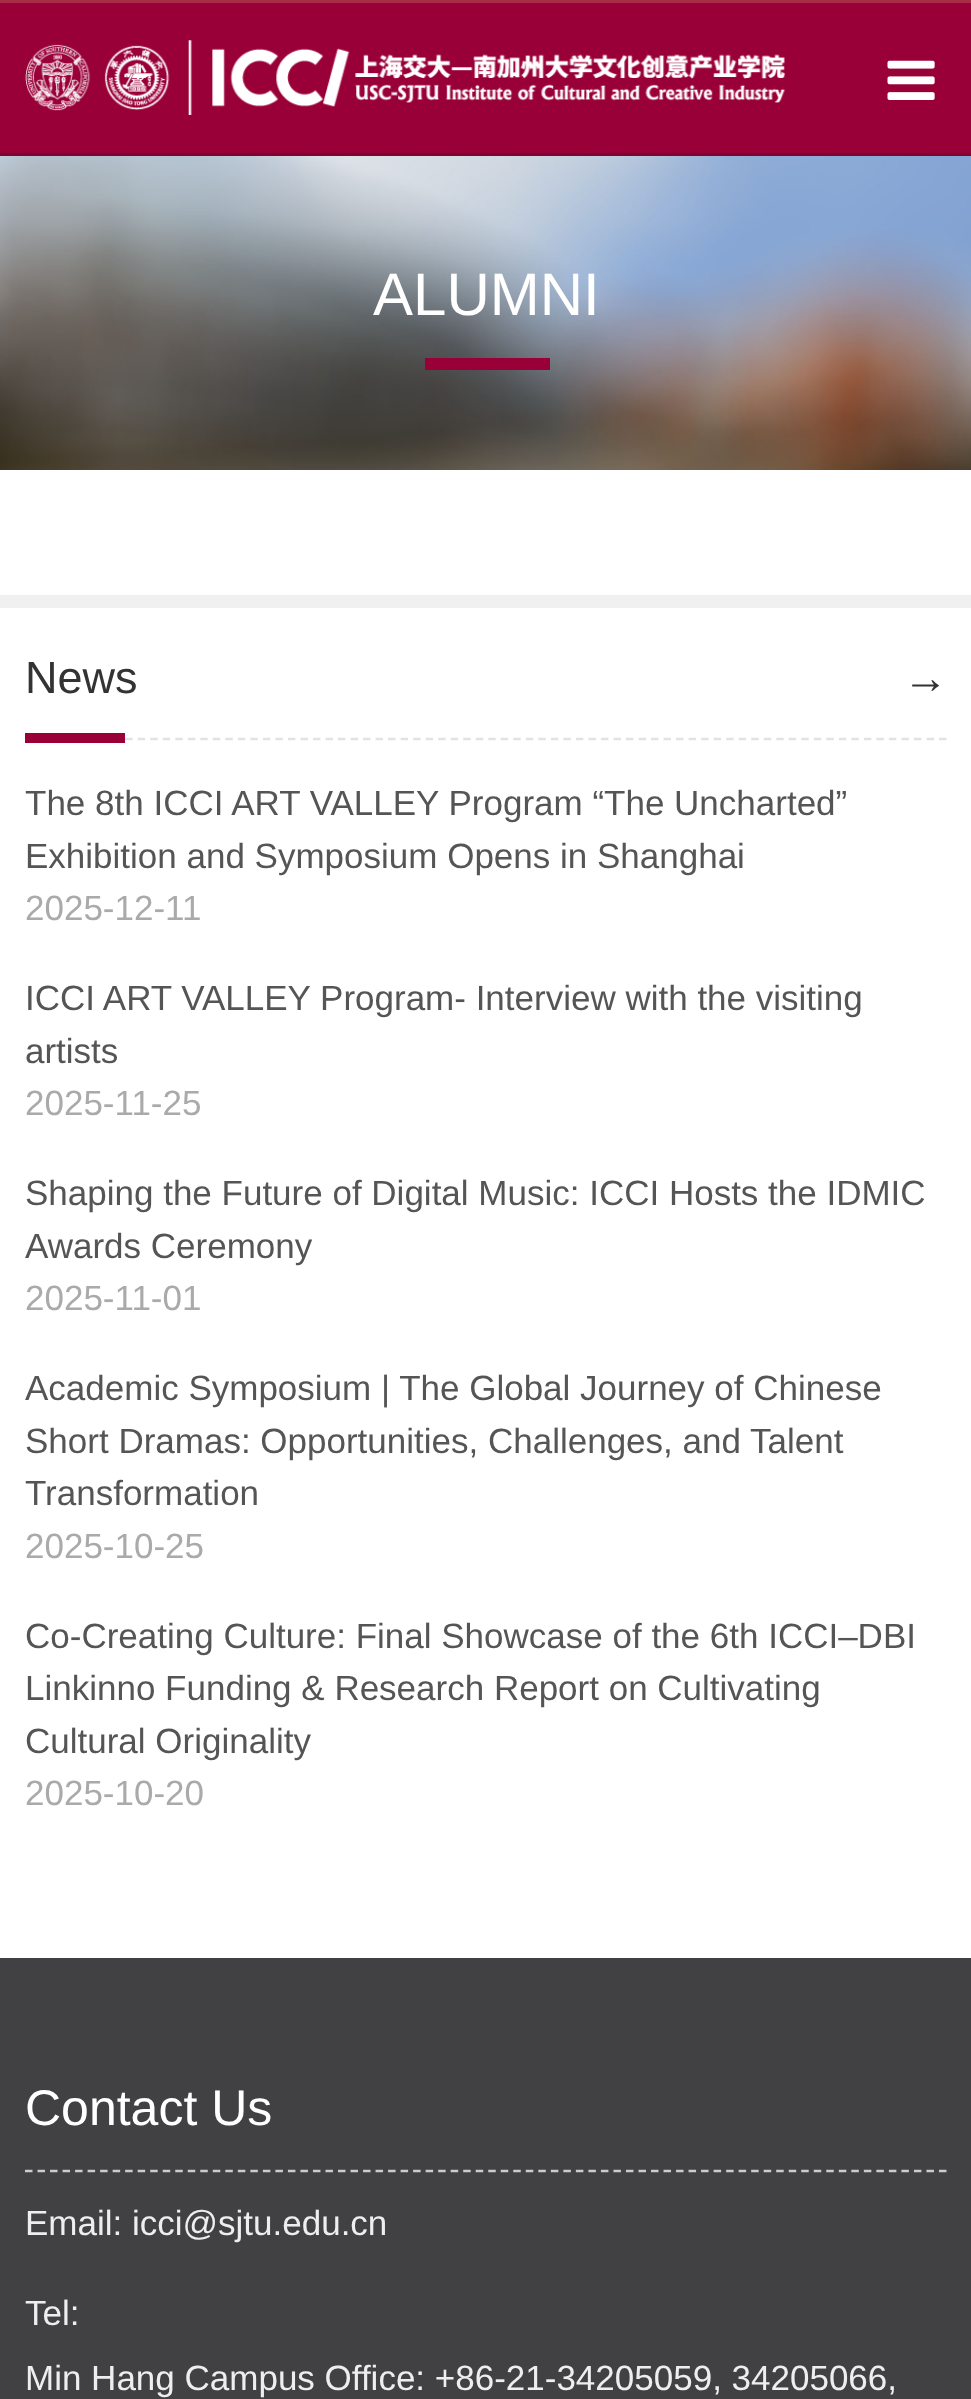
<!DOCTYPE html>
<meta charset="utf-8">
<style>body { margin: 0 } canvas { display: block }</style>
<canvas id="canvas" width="971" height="2399"></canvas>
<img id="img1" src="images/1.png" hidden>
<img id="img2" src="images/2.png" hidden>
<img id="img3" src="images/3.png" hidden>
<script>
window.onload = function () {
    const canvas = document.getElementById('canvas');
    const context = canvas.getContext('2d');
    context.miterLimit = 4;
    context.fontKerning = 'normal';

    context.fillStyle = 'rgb(255, 255, 255)';
    context.fillRect(0, 0, 971, 2399);
    context.fillStyle = 'rgb(154, 0, 56)';
    context.fillRect(0, 3, 971, 150);
    context.fillStyle = 'rgb(167, 44, 69)';
    context.fillRect(0, 0, 971, 3);
    context.fillStyle = 'rgb(126, 3, 49)';
    context.fillRect(0, 153, 971, 3);
    context.drawImage(document.getElementById('img1'), 25, 40, 760, 75);
    context.drawImage(document.getElementById('img2'), 887, 60, 48, 40);
    context.drawImage(document.getElementById('img3'), 0, 156, 971, 314);
    context.fillStyle = 'rgb(154, 0, 56)';
    context.fillRect(425, 358, 125, 12);
    context.fillStyle = 'rgb(240, 240, 240)';
    context.fillRect(0, 595, 971, 13);
    context.beginPath();
    context.moveTo(25, 739);
    context.lineTo(947.5, 739);
    context.strokeStyle = 'rgb(226, 226, 226)';
    context.lineWidth = 2.5;
    context.setLineDash([7.5, 5.02]);
    context.stroke();
    context.fillStyle = 'rgb(154, 0, 56)';
    context.fillRect(25, 733, 100, 10);
    context.fillStyle = 'rgb(65, 65, 67)';
    context.fillRect(0, 1958, 971, 441);
    context.beginPath();
    context.moveTo(25, 2171);
    context.lineTo(947.5, 2171);
    context.strokeStyle = 'rgb(204, 204, 204)';
    context.stroke();
    context.font = '60px Liberation Sans';
    context.fillStyle = 'rgb(255, 255, 255)';
    context.fillText('ALUMNI', 373, 315);
    context.font = '45px Liberation Sans';
    context.fillStyle = 'rgb(51, 51, 51)';
    context.fillText('News', 25, 693);
    context.font = 'italic 45px Liberation Sans';
    context.fillText('→', 903, 693);
    context.font = '35px Liberation Sans';
    context.fillStyle = 'rgb(85, 85, 85)';
    context.fillText('The 8th ICCI ART VALLEY Program “The Uncharted”', 25, 815);
    context.fillText('Exhibition and Symposium Opens in Shanghai', 25, 868);
    context.fillStyle = 'rgb(170, 170, 170)';
    context.fillText('2025-12-11', 25, 920);
    context.fillStyle = 'rgb(85, 85, 85)';
    context.fillText('ICCI ART VALLEY Program- Interview with the visiting', 25, 1010);
    context.fillText('artists', 25, 1063);
    context.fillStyle = 'rgb(170, 170, 170)';
    context.fillText('2025-11-25', 25, 1115);
    context.fillStyle = 'rgb(85, 85, 85)';
    context.fillText('Shaping the Future of Digital Music: ICCI Hosts the IDMIC', 25, 1205);
    context.fillText('Awards Ceremony', 25, 1258);
    context.fillStyle = 'rgb(170, 170, 170)';
    context.fillText('2025-11-01', 25, 1310);
    context.fillStyle = 'rgb(85, 85, 85)';
    context.fillText('Academic Symposium | The Global Journey of Chinese', 25, 1400);
    context.fillText('Short Dramas: Opportunities, Challenges, and Talent', 25, 1453);
    context.fillText('Transformation', 25, 1505);
    context.fillStyle = 'rgb(170, 170, 170)';
    context.fillText('2025-10-25', 25, 1558);
    context.fillStyle = 'rgb(85, 85, 85)';
    context.fillText('Co-Creating Culture: Final Showcase of the 6th ICCI–DBI', 25, 1648);
    context.fillText('Linkinno Funding & Research Report on Cultivating', 25, 1700);
    context.fillText('Cultural Originality', 25, 1753);
    context.fillStyle = 'rgb(170, 170, 170)';
    context.fillText('2025-10-20', 25, 1805);
    context.font = '50px Liberation Sans';
    context.fillStyle = 'rgb(255, 255, 255)';
    context.fillText('Contact Us', 25, 2125);
    context.font = '35px Liberation Sans';
    context.fillStyle = 'rgb(238, 238, 238)';
    context.fillText('Email: icci@sjtu.edu.cn', 25, 2235);
    context.fillText('Tel:', 25, 2325);
    context.fillText('Min Hang Campus Office: +86-21-34205059, 34205066,', 25, 2390);
};
</script>
